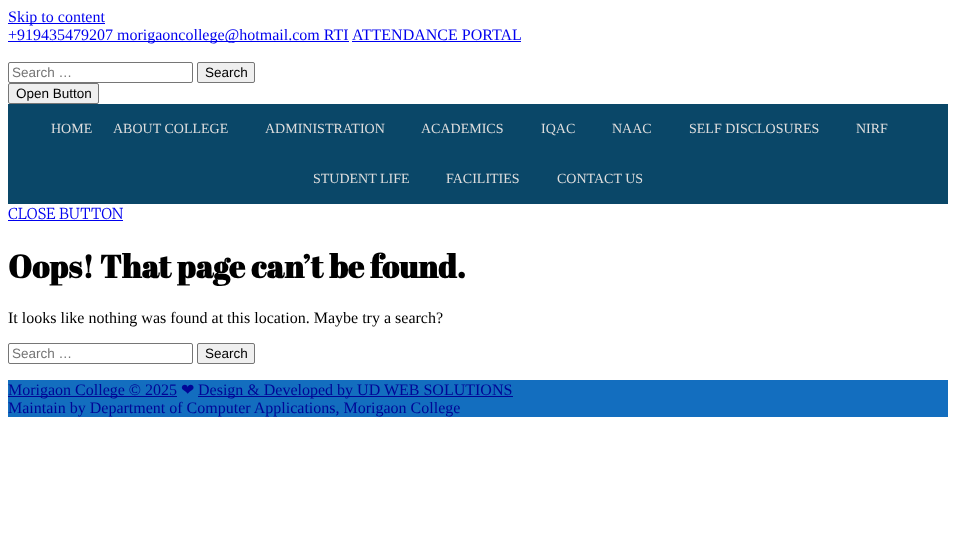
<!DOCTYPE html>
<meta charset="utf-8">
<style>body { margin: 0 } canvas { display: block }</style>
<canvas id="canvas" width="956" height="538"></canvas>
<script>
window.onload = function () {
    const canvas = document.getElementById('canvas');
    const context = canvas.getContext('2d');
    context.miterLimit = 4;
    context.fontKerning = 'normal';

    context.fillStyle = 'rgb(255, 255, 255)';
    context.fillRect(0, 0, 956, 538);
    context.fillStyle = 'rgb(0, 0, 238)';
    context.fillRect(8, 23, 97, 1);
    context.fillRect(8, 41, 341, 1);
    context.fillRect(352, 41, 169, 1);
    context.beginPath();
    context.roundRect(8.5, 62.5, 184, 20, 1.5);
    context.strokeStyle = 'rgb(118, 118, 118)';
    context.stroke();
    context.fillStyle = 'rgb(239, 239, 239)';
    context.beginPath();
    context.roundRect(197.5, 62.5, 57, 20, 1.5);
    context.fill();
    context.stroke();
    context.beginPath();
    context.roundRect(8.5, 83.5, 90, 20, 1.5);
    context.fill();
    context.stroke();
    context.fillStyle = 'rgb(10, 71, 104)';
    context.fillRect(8, 104, 940, 100);
    context.fillStyle = 'rgb(0, 0, 238)';
    context.fillRect(8, 220, 115, 1);
    context.beginPath();
    context.roundRect(8.5, 343.5, 184, 20, 1.5);
    context.stroke();
    context.fillStyle = 'rgb(239, 239, 239)';
    context.beginPath();
    context.roundRect(197.5, 343.5, 57, 20, 1.5);
    context.fill();
    context.stroke();
    context.fillStyle = 'rgb(19, 110, 191)';
    context.fillRect(8, 380, 940, 37);
    context.fillStyle = 'rgb(1, 6, 150)';
    context.fillRect(8, 396, 169, 1);
    context.fillRect(198, 396, 315, 1);
    context.font = '16px Liberation Serif';
    context.fillStyle = 'rgb(0, 0, 238)';
    context.fillText('Skip to content', 8, 22);
    context.fillText('+919435479207 morigaoncollege@hotmail.com RTI', 8, 40);
    context.fillText('ATTENDANCE PORTAL', 352, 40);
    context.font = '13.5px Liberation Sans';
    context.fillStyle = 'rgb(117, 117, 117)';
    context.fillText('Search …', 12, 77);
    context.fillStyle = 'rgb(0, 0, 0)';
    context.fillText('Search', 205, 77);
    context.fillText('Open Button', 16, 98);
    context.font = '14px Liberation Serif';
    context.fillStyle = 'rgb(221, 221, 221)';
    context.fillText('HOME', 51, 133);
    context.fillText('ABOUT COLLEGE', 113, 133);
    context.fillText('ADMINISTRATION', 265, 133);
    context.fillText('ACADEMICS', 421, 133);
    context.fillText('IQAC', 541, 133);
    context.fillText('NAAC', 612, 133);
    context.fillText('SELF DISCLOSURES', 689, 133);
    context.fillText('NIRF', 856, 133);
    context.fillText('STUDENT LIFE', 313, 183);
    context.fillText('FACILITIES', 446, 183);
    context.fillText('CONTACT US', 557, 183);
    context.font = '300 15px Merriweather';
    context.fillStyle = 'rgb(0, 0, 238)';
    context.fillText('CLOSE BUTTON', 8, 219);
    context.font = 'bold 32px Abril Fatface';
    context.fillStyle = 'rgb(0, 0, 0)';
    context.fillText('Oops! That page can’t be found.', 8, 278);
    context.font = '16px Liberation Serif';
    context.fillText('It looks like nothing was found at this location. Maybe try a search?', 8, 323);
    context.font = '13.5px Liberation Sans';
    context.fillStyle = 'rgb(117, 117, 117)';
    context.fillText('Search …', 12, 358);
    context.fillStyle = 'rgb(0, 0, 0)';
    context.fillText('Search', 205, 358);
    context.font = '16px Liberation Serif';
    context.fillStyle = 'rgb(1, 6, 150)';
    context.fillText('Morigaon College © 2025', 8, 395);
    context.font = '16px DejaVu Sans';
    context.fillText('❤', 181, 395);
    context.font = '16px Liberation Serif';
    context.fillText('Design & Developed by UD WEB SOLUTIONS', 198, 395);
    context.fillText('Maintain by Department of Computer Applications, Morigaon College', 8, 413);
};
</script>
